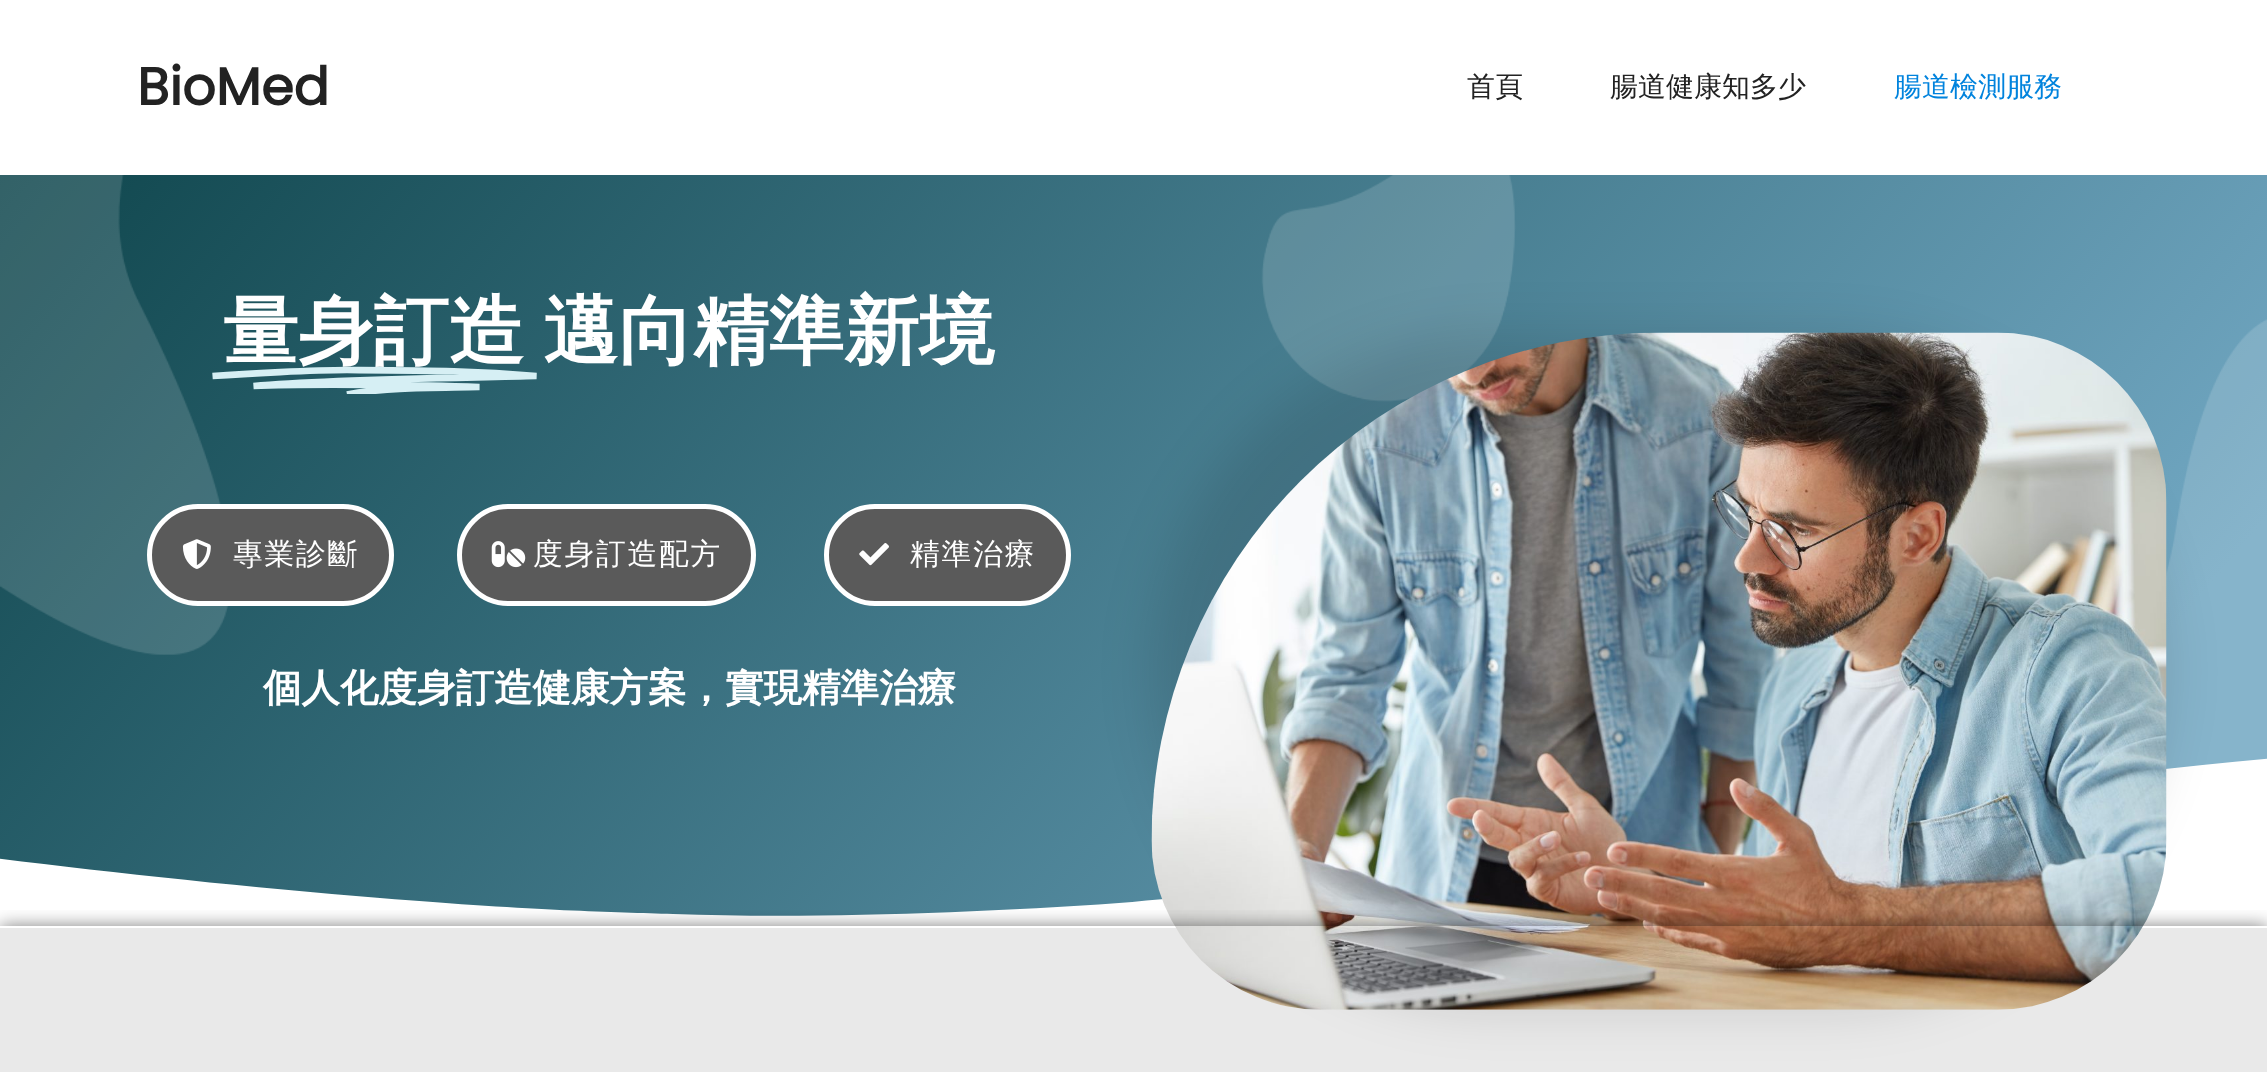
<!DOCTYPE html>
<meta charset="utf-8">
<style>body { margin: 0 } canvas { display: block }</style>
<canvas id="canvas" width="2267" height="1072"></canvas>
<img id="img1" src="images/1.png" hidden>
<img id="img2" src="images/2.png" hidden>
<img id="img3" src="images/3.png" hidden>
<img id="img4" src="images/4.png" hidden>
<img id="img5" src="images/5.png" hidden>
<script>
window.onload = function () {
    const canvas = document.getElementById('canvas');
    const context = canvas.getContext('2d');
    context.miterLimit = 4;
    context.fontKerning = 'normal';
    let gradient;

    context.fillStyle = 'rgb(233, 233, 233)';
    context.fillRect(0, 0, 2267, 1072);
    context.fillStyle = 'rgb(255, 255, 255)';
    context.fillRect(0, 0, 2267, 175);
    gradient = context.createLinearGradient(218, -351, 2050, 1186);
    gradient.addColorStop(0, 'rgb(7, 62, 67)');
    gradient.addColorStop(0.89, 'rgb(113, 167, 194)');
    context.fillStyle = gradient;
    context.fillRect(0, 175, 2267, 741);
    context.drawImage(document.getElementById('img1'), 0, 175, 2267, 594);
    context.save();
    context.beginPath();
    context.rect(207, 270, 336, 124);
    context.clip();
    context.beginPath();
    context.moveTo(212.5, 376);
    context.bezierCurveTo(246, 373.5, 314, 370, 347, 370);
    context.bezierCurveTo(429, 370.5, 474.5, 370.5, 536.5, 376);
    context.bezierCurveTo(462, 378, 328.5, 379, 253.5, 386);
    context.bezierCurveTo(309, 383.5, 424.5, 385, 479.5, 387);
    context.bezierCurveTo(441.5, 388, 387, 387, 347, 394.5);
    context.strokeStyle = 'rgb(214, 239, 244)';
    context.lineWidth = 6.7;
    context.stroke();
    context.restore();
    context.fillStyle = 'rgb(90, 90, 90)';
    context.beginPath();
    context.roundRect(149.5, 506.5, 242, 97, 48.5);
    context.fill();
    context.strokeStyle = 'rgb(255, 255, 255)';
    context.lineWidth = 5;
    context.stroke();
    context.drawImage(document.getElementById('img2'), 182, 539, 29, 30);
    context.beginPath();
    context.roundRect(459.5, 506.5, 294, 97, 48.5);
    context.fill();
    context.stroke();
    context.drawImage(document.getElementById('img3'), 491, 541, 35, 27);
    context.beginPath();
    context.roundRect(826.5, 506.5, 242, 97, 48.5);
    context.fill();
    context.stroke();
    context.drawImage(document.getElementById('img4'), 859, 543, 30, 23);
    context.fillStyle = 'rgb(255, 255, 255)';
    context.beginPath();
    context.moveTo(673, 914);
    context.bezierCurveTo(807, 919, 977, 913, 1119, 903);
    context.bezierCurveTo(1258, 892, 1537, 853, 1712, 828);
    context.bezierCurveTo(2159, 760, 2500, 734, 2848, 723);
    context.bezierCurveTo(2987, 719, 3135, 716, 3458, 729);
    context.bezierCurveTo(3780, 741, 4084, 782, 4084, 782);
    context.lineTo(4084, 928);
    context.lineTo(-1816, 928);
    context.lineTo(-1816, 864);
    context.bezierCurveTo(-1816, 864, -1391, 795, -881, 800);
    context.bezierCurveTo(-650, 801, -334, 814, -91, 847);
    context.bezierCurveTo(34, 864, 217, 885, 380, 898);
    context.bezierCurveTo(540, 911, 613, 912, 673, 914);
    context.closePath();
    context.fill();
    context.fillStyle = 'rgba(0, 0, 0, 0.12)';
    context.filter = 'blur(26px)';
    context.beginPath();
    context.roundRect(1152, 333, 1015, 677, 508);
    context.fill();
    context.filter = 'none';
    context.drawImage(document.getElementById('img5'), 1151, 332, 1016, 678);
    context.save();
    context.beginPath();
    context.rect(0, 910, 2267, 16);
    context.clip();
    context.fillStyle = 'rgba(0, 0, 0, 0.5)';
    context.filter = 'blur(9px)';
    context.beginPath();
    context.rect(0, 926, 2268, 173);
    context.fill();
    context.filter = 'none';
    context.restore();
    context.font = 'bold 52.5px Poppins';
    context.fillStyle = 'rgb(34, 34, 34)';
    context.fillText('BioMed', 137, 105);
    context.font = '500 28px WenQuanYi Zen Hei';
    context.fillText('首頁', 1467, 96);
    context.fillText('腸道健康知多少', 1610, 96);
    context.fillStyle = 'rgb(0, 131, 221)';
    context.fillText('腸道檢測服務', 1894, 96);
    context.font = 'bold 75.25px WenQuanYi Zen Hei';
    context.fillStyle = 'rgb(255, 255, 255)';
    context.fillText('量身訂造', 223, 357);
    context.fillText('邁向精準新境', 543, 357);
    context.letterSpacing = '1.75px';
    context.font = '500 29.75px WenQuanYi Zen Hei';
    context.fillText('專業診斷', 233, 564);
    context.fillText('度身訂造配方', 533, 564);
    context.fillText('精準治療', 910, 564);
    context.letterSpacing = '0px';
    context.font = 'bold 38.5px WenQuanYi Zen Hei';
    context.fillText('個人化度身訂造健康方案，實現精準治療', 263, 701);
};
</script>
